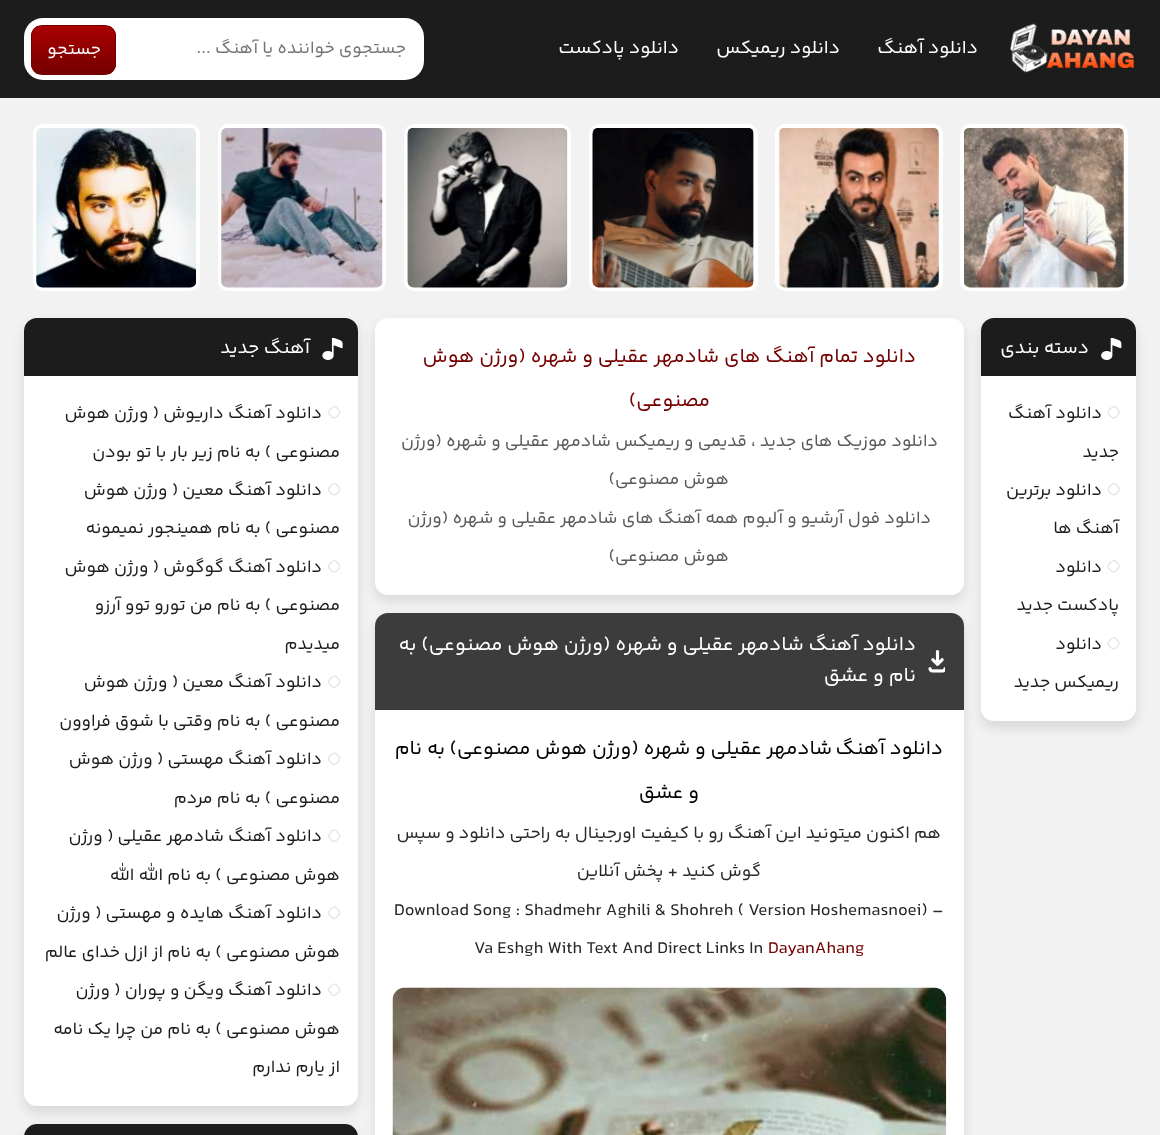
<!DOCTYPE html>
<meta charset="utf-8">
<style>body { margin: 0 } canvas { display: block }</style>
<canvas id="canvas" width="1160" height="1135"></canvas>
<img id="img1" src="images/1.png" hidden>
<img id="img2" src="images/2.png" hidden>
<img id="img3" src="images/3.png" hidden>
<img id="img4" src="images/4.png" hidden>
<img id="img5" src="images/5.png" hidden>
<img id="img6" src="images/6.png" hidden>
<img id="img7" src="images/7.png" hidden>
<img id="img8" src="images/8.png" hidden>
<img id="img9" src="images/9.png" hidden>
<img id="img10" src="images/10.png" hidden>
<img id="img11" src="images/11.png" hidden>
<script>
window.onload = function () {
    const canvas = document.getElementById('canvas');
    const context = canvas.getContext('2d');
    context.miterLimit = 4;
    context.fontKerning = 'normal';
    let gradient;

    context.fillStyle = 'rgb(242, 242, 242)';
    context.fillRect(0, 0, 1160, 1135);
    context.fillStyle = 'rgb(28, 28, 28)';
    context.fillRect(0, 0, 1160, 98);
    context.drawImage(document.getElementById('img1'), 1010, 23, 124, 50);
    context.fillStyle = 'rgb(255, 255, 255)';
    context.beginPath();
    context.roundRect(24, 18, 400, 62, 19);
    context.fill();
    context.save();
    context.beginPath();
    context.roundRect(31, 25, 85, 50, 11);
    context.clip();
    gradient = context.createLinearGradient(74, 26, 74, 74);
    gradient.addColorStop(0, 'rgb(171, 0, 0)');
    gradient.addColorStop(1, 'rgb(117, 0, 0)');
    context.fillStyle = gradient;
    context.fillRect(31, 26, 85, 48);
    context.restore();
    context.beginPath();
    context.roundRect(31.5, 25.5, 84, 49, 10.5);
    context.strokeStyle = 'rgb(117, 0, 0)';
    context.stroke();
    context.beginPath();
    context.roundRect(962, 126, 164, 163, 8);
    context.fill();
    context.strokeStyle = 'rgb(255, 255, 255)';
    context.lineWidth = 4;
    context.stroke();
    context.drawImage(document.getElementById('img2'), 964, 128, 160, 160);
    context.beginPath();
    context.roundRect(777, 126, 164, 163, 8);
    context.fill();
    context.stroke();
    context.drawImage(document.getElementById('img3'), 779, 128, 160, 160);
    context.beginPath();
    context.roundRect(591, 126, 165, 163, 8);
    context.fill();
    context.stroke();
    context.drawImage(document.getElementById('img4'), 592, 128, 162, 160);
    context.beginPath();
    context.roundRect(406, 126, 163, 163, 8);
    context.stroke();
    context.drawImage(document.getElementById('img5'), 407, 128, 161, 160);
    context.beginPath();
    context.roundRect(220, 126, 164, 163, 8);
    context.stroke();
    context.drawImage(document.getElementById('img6'), 221, 128, 162, 160);
    context.beginPath();
    context.roundRect(35, 126, 163, 163, 8);
    context.stroke();
    context.drawImage(document.getElementById('img7'), 36, 128, 160, 160);
    context.fillStyle = 'rgba(0, 0, 0, 0.1)';
    context.filter = 'blur(6px)';
    context.beginPath();
    context.roundRect(375, 324, 589, 277, 13);
    context.fill();
    context.filter = 'none';
    context.fillStyle = 'rgb(255, 255, 255)';
    context.beginPath();
    context.roundRect(375, 318, 589, 277, 13);
    context.fill();
    context.fillStyle = 'rgba(0, 0, 0, 0.1)';
    context.filter = 'blur(6px)';
    context.beginPath();
    context.roundRect(375, 619, 589, 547, 13);
    context.fill();
    context.filter = 'none';
    context.fillStyle = 'rgb(255, 255, 255)';
    context.beginPath();
    context.roundRect(375, 613, 589, 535, 13);
    context.fill();
    context.fillStyle = 'rgb(60, 60, 60)';
    context.beginPath();
    context.roundRect(375, 613, 589, 97, [13, 13, 0, 0]);
    context.fill();
    context.fillStyle = 'rgba(0, 0, 0, 0.1)';
    context.filter = 'blur(6px)';
    context.beginPath();
    context.roundRect(981, 324, 155, 404, 13);
    context.fill();
    context.filter = 'none';
    context.fillStyle = 'rgb(255, 255, 255)';
    context.beginPath();
    context.roundRect(981, 318, 155, 403, 13);
    context.fill();
    context.fillStyle = 'rgb(28, 28, 28)';
    context.beginPath();
    context.roundRect(981, 318, 155, 58, [13, 13, 0, 0]);
    context.fill();
    context.drawImage(document.getElementById('img8'), 1101, 338, 21, 22);
    context.beginPath();
    context.moveTo(1116, 407.5);
    context.lineTo(1119, 411);
    context.bezierCurveTo(1120, 413, 1118.5, 414.5, 1117, 416);
    context.bezierCurveTo(1115.5, 417.5, 1113.5, 419, 1111.5, 417);
    context.lineTo(1108, 413.5);
    context.bezierCurveTo(1107.5, 411.5, 1109, 410, 1110, 409);
    context.bezierCurveTo(1111.5, 407.5, 1114, 405.5, 1116, 407.5);
    context.closePath();
    context.strokeStyle = 'rgb(229, 229, 229)';
    context.lineWidth = 1.3;
    context.stroke();
    context.beginPath();
    context.moveTo(1116, 484.5);
    context.lineTo(1119, 488);
    context.bezierCurveTo(1120, 490, 1118.5, 491.5, 1117, 493);
    context.bezierCurveTo(1115.5, 494.5, 1113.5, 496, 1111.5, 494);
    context.lineTo(1108, 490.5);
    context.bezierCurveTo(1107.5, 488.5, 1109, 487, 1110, 486);
    context.bezierCurveTo(1111.5, 484.5, 1114, 482.5, 1116, 484.5);
    context.closePath();
    context.stroke();
    context.beginPath();
    context.moveTo(1116, 561.5);
    context.lineTo(1119, 565);
    context.bezierCurveTo(1120, 567, 1118.5, 568.5, 1117, 570);
    context.bezierCurveTo(1115.5, 571.5, 1113.5, 573, 1111.5, 571);
    context.lineTo(1108, 567.5);
    context.bezierCurveTo(1107.5, 565.5, 1109, 564, 1110, 563);
    context.bezierCurveTo(1111.5, 561.5, 1114, 559.5, 1116, 561.5);
    context.closePath();
    context.stroke();
    context.beginPath();
    context.moveTo(1116, 638.5);
    context.lineTo(1119, 642);
    context.bezierCurveTo(1120, 644, 1118.5, 645.5, 1117, 647);
    context.bezierCurveTo(1115.5, 648.5, 1113.5, 650, 1111.5, 648);
    context.lineTo(1108, 644.5);
    context.bezierCurveTo(1107.5, 642.5, 1109, 641, 1110, 640);
    context.bezierCurveTo(1111.5, 638.5, 1114, 636.5, 1116, 638.5);
    context.closePath();
    context.stroke();
    context.drawImage(document.getElementById('img9'), 928, 650, 17, 23);
    context.drawImage(document.getElementById('img10'), 392, 987, 555, 148);
    context.fillStyle = 'rgba(0, 0, 0, 0.1)';
    context.filter = 'blur(6px)';
    context.beginPath();
    context.roundRect(24, 324, 334, 789, 13);
    context.fill();
    context.filter = 'none';
    context.fillStyle = 'rgb(255, 255, 255)';
    context.beginPath();
    context.roundRect(24, 318, 334, 788, 13);
    context.fill();
    context.fillStyle = 'rgb(28, 28, 28)';
    context.beginPath();
    context.roundRect(24, 318, 334, 58, [13, 13, 0, 0]);
    context.fill();
    context.drawImage(document.getElementById('img11'), 322, 338, 21, 22);
    context.beginPath();
    context.moveTo(336.5, 407.5);
    context.lineTo(339.5, 411);
    context.bezierCurveTo(340.5, 413, 339, 414.5, 337.5, 416);
    context.bezierCurveTo(336, 417.5, 334, 419, 332, 417);
    context.lineTo(328.5, 413.5);
    context.bezierCurveTo(328, 411.5, 329.5, 410, 330.5, 409);
    context.bezierCurveTo(332, 407.5, 334.5, 405.5, 336.5, 407.5);
    context.closePath();
    context.stroke();
    context.beginPath();
    context.moveTo(336.5, 484.5);
    context.lineTo(339.5, 488);
    context.bezierCurveTo(340.5, 490, 339, 491.5, 337.5, 493);
    context.bezierCurveTo(336, 494.5, 334, 496, 332, 494);
    context.lineTo(328.5, 490.5);
    context.bezierCurveTo(328, 488.5, 329.5, 487, 330.5, 486);
    context.bezierCurveTo(332, 484.5, 334.5, 482.5, 336.5, 484.5);
    context.closePath();
    context.stroke();
    context.beginPath();
    context.moveTo(336.5, 561.5);
    context.lineTo(339.5, 565);
    context.bezierCurveTo(340.5, 567, 339, 568.5, 337.5, 570);
    context.bezierCurveTo(336, 571.5, 334, 573, 332, 571);
    context.lineTo(328.5, 567.5);
    context.bezierCurveTo(328, 565.5, 329.5, 564, 330.5, 563);
    context.bezierCurveTo(332, 561.5, 334.5, 559.5, 336.5, 561.5);
    context.closePath();
    context.stroke();
    context.beginPath();
    context.moveTo(336.5, 677);
    context.lineTo(339.5, 680.5);
    context.bezierCurveTo(340.5, 682.5, 339, 684, 337.5, 685.5);
    context.bezierCurveTo(336, 687, 334, 688.5, 332, 686.5);
    context.lineTo(328.5, 683);
    context.bezierCurveTo(328, 681, 329.5, 679.5, 330.5, 678.5);
    context.bezierCurveTo(332, 677, 334.5, 675, 336.5, 677);
    context.closePath();
    context.stroke();
    context.beginPath();
    context.moveTo(336.5, 754);
    context.lineTo(339.5, 757.5);
    context.bezierCurveTo(340.5, 759.5, 339, 761, 337.5, 762.5);
    context.bezierCurveTo(336, 764, 334, 765.5, 332, 763.5);
    context.lineTo(328.5, 760);
    context.bezierCurveTo(328, 758, 329.5, 756.5, 330.5, 755.5);
    context.bezierCurveTo(332, 754, 334.5, 752, 336.5, 754);
    context.closePath();
    context.stroke();
    context.beginPath();
    context.moveTo(336.5, 831);
    context.lineTo(339.5, 834.5);
    context.bezierCurveTo(340.5, 836.5, 339, 838, 337.5, 839.5);
    context.bezierCurveTo(336, 841, 334, 842.5, 332, 840.5);
    context.lineTo(328.5, 837);
    context.bezierCurveTo(328, 835, 329.5, 833.5, 330.5, 832.5);
    context.bezierCurveTo(332, 830.5, 334.5, 829, 336.5, 831);
    context.closePath();
    context.stroke();
    context.beginPath();
    context.moveTo(336.5, 908);
    context.lineTo(339.5, 911.5);
    context.bezierCurveTo(340.5, 913.5, 339, 915, 337.5, 916.5);
    context.bezierCurveTo(336, 918, 334, 919.5, 332, 917.5);
    context.lineTo(328.5, 914);
    context.bezierCurveTo(328, 912, 329.5, 910.5, 330.5, 909.5);
    context.bezierCurveTo(332, 907.5, 334.5, 906, 336.5, 908);
    context.closePath();
    context.stroke();
    context.beginPath();
    context.moveTo(336.5, 985);
    context.lineTo(339.5, 988.5);
    context.bezierCurveTo(340.5, 990.5, 339, 992, 337.5, 993.5);
    context.bezierCurveTo(336, 995, 334, 996.5, 332, 994.5);
    context.lineTo(328.5, 991);
    context.bezierCurveTo(328, 989, 329.5, 987.5, 330.5, 986.5);
    context.bezierCurveTo(332, 984.5, 334.5, 983, 336.5, 985);
    context.closePath();
    context.stroke();
    context.fillStyle = 'rgba(0, 0, 0, 0.1)';
    context.filter = 'blur(6px)';
    context.beginPath();
    context.roundRect(24, 1130, 334, 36, 13);
    context.fill();
    context.filter = 'none';
    context.fillStyle = 'rgb(28, 28, 28)';
    context.beginPath();
    context.moveTo(37, 1124);
    context.lineTo(345, 1124);
    context.bezierCurveTo(352, 1124, 358, 1130, 358, 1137);
    context.lineTo(358, 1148);
    context.lineTo(24, 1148);
    context.lineTo(24, 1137);
    context.bezierCurveTo(24, 1130, 30, 1124, 37, 1124);
    context.closePath();
    context.fill();
    context.direction = 'rtl';
    context.font = '18.75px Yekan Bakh';
    context.fillStyle = 'rgb(255, 255, 255)';
    context.fillText('دانلود آهنگ', 978, 53);
    context.fillText('دانلود ریمیکس', 840, 53);
    context.fillText('دانلود پادکست', 679, 53);
    context.font = '17.5px Yekan Bakh';
    context.fillStyle = 'rgb(117, 117, 117)';
    context.fillText('جستجوی خواننده یا آهنگ ...', 406, 53);
    context.fillStyle = 'rgb(255, 255, 255)';
    context.fillText('جستجو', 101, 54);
    context.font = '18.75px Yekan Bakh';
    context.fillText('دسته بندی', 1089, 353);
    context.font = '17.5px Yekan Bakh';
    context.fillStyle = 'rgb(28, 28, 28)';
    context.fillText('دانلود آهنگ', 1102, 418);
    context.fillText('جدید', 1119, 457);
    context.fillText('دانلود برترین', 1102, 495);
    context.fillText('آهنگ ها', 1119, 533);
    context.fillText('دانلود', 1102, 572);
    context.fillText('پادکست جدید', 1119, 610);
    context.fillText('دانلود', 1102, 649);
    context.fillText('ریمیکس جدید', 1119, 687);
    context.font = '20px Yekan Bakh';
    context.fillStyle = 'rgb(117, 0, 0)';
    context.fillText('دانلود تمام آهنگ های شادمهر عقیلی و شهره (ورژن هوش', 916, 362);
    context.fillText('مصنوعی)', 710, 406);
    context.font = '17.5px Yekan Bakh';
    context.fillStyle = 'rgb(89, 89, 89)';
    context.fillText('دانلود موزیک های جدید ، قدیمی و ریمیکس شادمهر عقیلی و شهره (ورژن', 938, 446);
    context.fillText('هوش مصنوعی)', 729, 484);
    context.fillText('دانلود فول آرشیو و آلبوم همه آهنگ های شادمهر عقیلی و شهره (ورژن', 931, 523);
    context.fillText('هوش مصنوعی)', 729, 561);
    context.font = '20px Yekan Bakh';
    context.fillStyle = 'rgb(255, 255, 255)';
    context.fillText('دانلود آهنگ شادمهر عقیلی و شهره (ورژن هوش مصنوعی) به', 916, 650);
    context.fillText('نام و عشق', 916, 681);
    context.fillStyle = 'rgb(0, 0, 0)';
    context.fillText('دانلود آهنگ', 943, 754);
    context.fillText('شادمهر عقیلی و شهره (ورژن هوش مصنوعی)', 832, 754);
    context.fillText('به', 445, 754);
    context.fillText('نام', 422, 754);
    context.fillText('و عشق', 699, 798);
    context.font = '17.5px Yekan Bakh';
    context.fillStyle = 'rgb(40, 40, 40)';
    context.fillText('هم اکنون میتونید این آهنگ رو با کیفیت اورجینال به راحتی دانلود و سپس', 941, 838);
    context.fillText('گوش کنید + پخش آنلاین', 761, 876);
    context.direction = 'ltr';
    context.fillText('Download Song : Shadmehr Aghili & Shohreh ( Version Hoshemasnoei) –', 394, 915);
    context.fillStyle = 'rgb(117, 0, 0)';
    context.fillText('DayanAhang', 768, 953);
    context.fillStyle = 'rgb(40, 40, 40)';
    context.fillText('Va Eshgh With Text And Direct Links In', 474, 953);
    context.direction = 'rtl';
    context.font = '18.75px Yekan Bakh';
    context.fillStyle = 'rgb(255, 255, 255)';
    context.fillText('آهنگ جديد', 310, 353);
    context.font = '17.5px Yekan Bakh';
    context.fillStyle = 'rgb(28, 28, 28)';
    context.fillText('دانلود آهنگ داریوش ( ورژن هوش', 322, 418);
    context.fillText('مصنوعی ) به نام زیر بار با تو بودن', 340, 457);
    context.fillText('دانلود آهنگ معین ( ورژن هوش', 322, 495);
    context.fillText('مصنوعی ) به نام همینجور نمیمونه', 340, 533);
    context.fillText('دانلود آهنگ گوگوش ( ورژن هوش', 322, 572);
    context.fillText('مصنوعی ) به نام من تورو توو آرزو', 340, 610);
    context.fillText('میدیدم', 340, 649);
    context.fillText('دانلود آهنگ معین ( ورژن هوش', 322, 687);
    context.fillText('مصنوعی ) به نام وقتی با شوق فراوون', 340, 726);
    context.fillText('دانلود آهنگ مهستی ( ورژن هوش', 322, 764);
    context.fillText('مصنوعی ) به نام مردم', 340, 803);
    context.fillText('دانلود آهنگ شادمهر عقیلی ( ورژن', 322, 841);
    context.fillText('هوش مصنوعی ) به نام الله الله', 340, 880);
    context.fillText('دانلود آهنگ هایده و مهستی ( ورژن', 322, 918);
    context.fillText('هوش مصنوعی ) به نام از ازل خدای عالم', 340, 957);
    context.fillText('دانلود آهنگ ویگن و پوران ( ورژن', 322, 995);
    context.fillText('هوش مصنوعی ) به نام من چرا یک نامه', 340, 1034);
    context.fillText('از یارم ندارم', 340, 1072);
};
</script>
